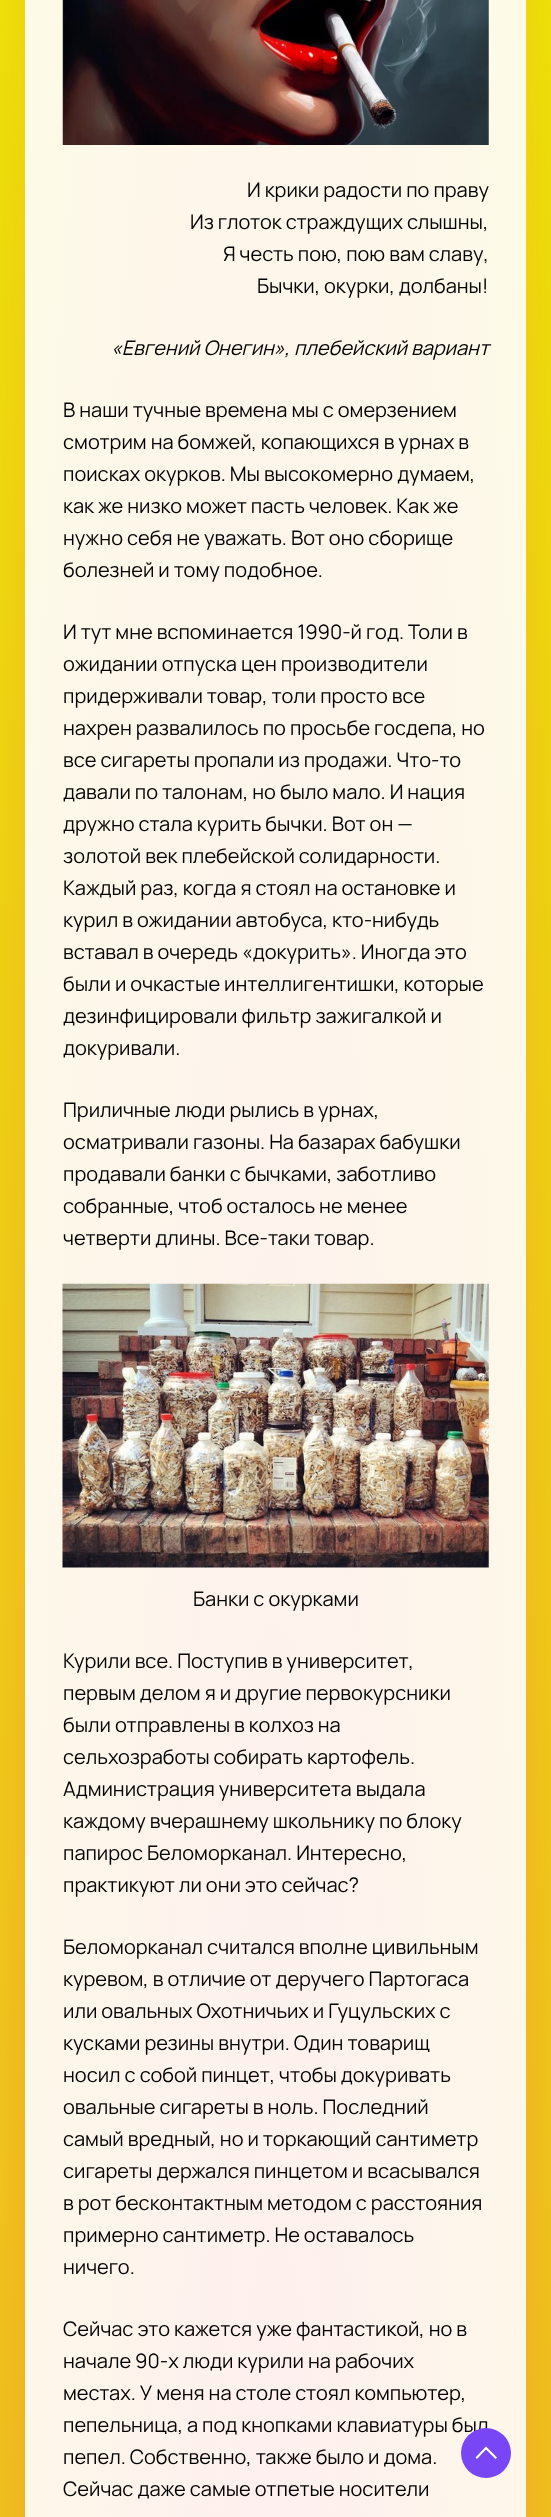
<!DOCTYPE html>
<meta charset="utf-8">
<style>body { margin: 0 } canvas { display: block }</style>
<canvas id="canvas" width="551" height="2517"></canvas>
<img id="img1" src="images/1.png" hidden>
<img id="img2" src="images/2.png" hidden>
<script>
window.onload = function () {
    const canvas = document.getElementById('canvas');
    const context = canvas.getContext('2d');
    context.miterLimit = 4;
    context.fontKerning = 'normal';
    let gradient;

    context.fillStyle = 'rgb(255, 255, 255)';
    context.fillRect(0, 0, 551, 2517);
    gradient = context.createRadialGradient(276, 230.54, 0, 276, 230.54, 390);
    gradient.addColorStop(0, 'rgb(246, 70, 107)');
    gradient.addColorStop(1, 'rgb(236, 236, 0)');
    context.fillStyle = gradient;
    context.beginPath();
    context.rect(0, 0, 551, 2517);
    context.save();
    context.clip();
    context.scale(1, 6080 / 390);
    context.fillRect(0, 0, 551, 162);
    context.restore();
    gradient = context.createRadialGradient(276, 230.54, 0, 276, 230.54, 390);
    gradient.addColorStop(0, 'rgb(254, 237, 240)');
    gradient.addColorStop(1, 'rgb(253, 253, 230)');
    context.fillStyle = gradient;
    context.beginPath();
    context.rect(25, 0, 501, 2517);
    context.save();
    context.clip();
    context.scale(1, 6080 / 390);
    context.fillRect(0, 0, 551, 162);
    context.restore();
    context.drawImage(document.getElementById('img1'), 62, 0, 427, 145);
    context.drawImage(document.getElementById('img2'), 62, 1283, 427, 285);
    context.font = '200 20px Manrope';
    context.fillStyle = 'rgb(0, 0, 0)';
    context.fillText('И крики радости по праву', 247, 197);
    context.fillText('Из глоток страждущих слышны,', 190, 229);
    context.fillText('Я честь пою, пою вам славу,', 223, 261);
    context.fillText('Бычки, окурки, долбаны!', 257, 293);
    context.font = 'italic 200 20px Manrope';
    context.fillText('«Евгений Онегин», плебейский вариант', 111, 355);
    context.font = '200 20px Manrope';
    context.fillText('В наши тучные времена мы с омерзением', 63, 417);
    context.fillText('смотрим на бомжей, копающихся в урнах в', 63, 449);
    context.fillText('поисках окурков. Мы высокомерно думаем,', 63, 481);
    context.fillText('как же низко может пасть человек. Как же', 63, 513);
    context.fillText('нужно себя не уважать. Вот оно сборище', 63, 545);
    context.fillText('болезней и тому подобное.', 63, 577);
    context.fillText('И тут мне вспоминается 1990-й год. Толи в', 63, 639);
    context.fillText('ожидании отпуска цен производители', 63, 671);
    context.fillText('придерживали товар, толи просто все', 63, 703);
    context.fillText('нахрен развалилось по просьбе госдепа, но', 63, 735);
    context.fillText('все сигареты пропали из продажи. Что-то', 63, 767);
    context.fillText('давали по талонам, но было мало. И нация', 63, 799);
    context.fillText('дружно стала курить бычки. Вот он —', 63, 831);
    context.fillText('золотой век плебейской солидарности.', 63, 863);
    context.fillText('Каждый раз, когда я стоял на остановке и', 63, 895);
    context.fillText('курил в ожидании автобуса, кто-нибудь', 63, 927);
    context.fillText('вставал в очередь «докурить». Иногда это', 63, 959);
    context.fillText('были и очкастые интеллигентишки, которые', 63, 991);
    context.fillText('дезинфицировали фильтр зажигалкой и', 63, 1023);
    context.fillText('докуривали.', 63, 1055);
    context.fillText('Приличные люди рылись в урнах,', 63, 1117);
    context.fillText('осматривали газоны. На базарах бабушки', 63, 1149);
    context.fillText('продавали банки с бычками, заботливо', 63, 1181);
    context.fillText('собранные, чтоб осталось не менее', 63, 1213);
    context.fillText('четверти длины. Все-таки товар.', 63, 1245);
    context.fillText('Банки с окурками', 193, 1606);
    context.fillText('Курили все. Поступив в университет,', 63, 1668);
    context.fillText('первым делом я и другие первокурсники', 63, 1700);
    context.fillText('были отправлены в колхоз на', 63, 1732);
    context.fillText('сельхозработы собирать картофель.', 63, 1764);
    context.fillText('Администрация университета выдала', 63, 1796);
    context.fillText('каждому вчерашнему школьнику по блоку', 63, 1828);
    context.fillText('папирос Беломорканал. Интересно,', 63, 1860);
    context.fillText('практикуют ли они это сейчас?', 63, 1892);
    context.fillText('Беломорканал считался вполне цивильным', 63, 1954);
    context.fillText('куревом, в отличие от деручего Партогаса', 63, 1986);
    context.fillText('или овальных Охотничьих и Гуцульских с', 63, 2018);
    context.fillText('кусками резины внутри. Один товарищ', 63, 2050);
    context.fillText('носил с собой пинцет, чтобы докуривать', 63, 2082);
    context.fillText('овальные сигареты в ноль. Последний', 63, 2114);
    context.fillText('самый вредный, но и торкающий сантиметр', 63, 2146);
    context.fillText('сигареты держался пинцетом и всасывался', 63, 2178);
    context.fillText('в рот бесконтактным методом с расстояния', 63, 2210);
    context.fillText('примерно сантиметр. Не оставалось', 63, 2242);
    context.fillText('ничего.', 63, 2274);
    context.fillText('Сейчас это кажется уже фантастикой, но в', 63, 2336);
    context.fillText('начале 90-х люди курили на рабочих', 63, 2368);
    context.fillText('местах. У меня на столе стоял компьютер,', 63, 2400);
    context.fillText('пепельница, а под кнопками клавиатуры был', 63, 2432);
    context.fillText('пепел. Собственно, также было и дома.', 63, 2464);
    context.fillText('Сейчас даже самые отпетые носители', 63, 2496);
    context.fillStyle = 'rgb(121, 70, 246)';
    context.beginPath();
    context.arc(486, 2453, 25, 0, 2 * Math.PI);
    context.fill();
    context.fillStyle = 'rgb(255, 255, 255)';
    context.beginPath();
    context.moveTo(497, 2457.5);
    context.lineTo(495.5, 2459);
    context.lineTo(486, 2449.5);
    context.lineTo(477, 2459);
    context.lineTo(475.5, 2457.5);
    context.lineTo(486, 2446.5);
    context.lineTo(497, 2457.5);
    context.fill();
};
</script>
